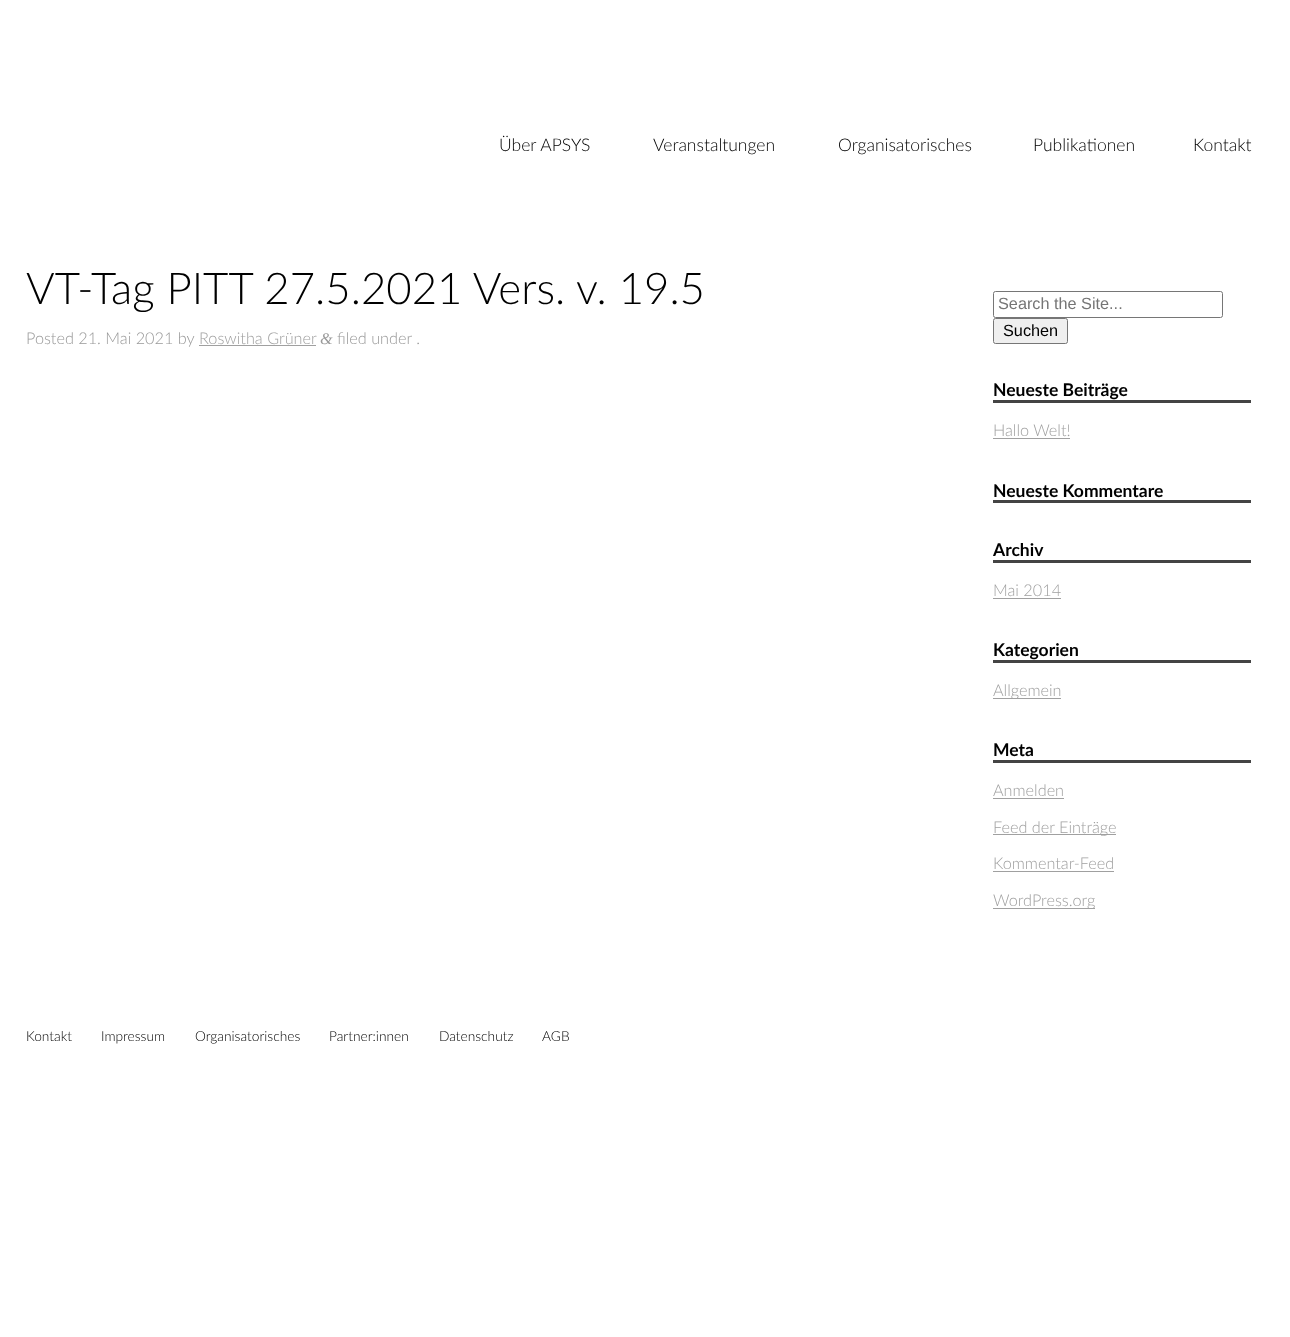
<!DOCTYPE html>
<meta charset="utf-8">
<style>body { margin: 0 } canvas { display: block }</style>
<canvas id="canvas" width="1290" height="1337"></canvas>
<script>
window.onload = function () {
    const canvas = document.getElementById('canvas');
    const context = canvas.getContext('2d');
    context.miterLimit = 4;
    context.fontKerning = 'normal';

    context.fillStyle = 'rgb(255, 255, 255)';
    context.fillRect(0, 0, 1290, 1337);
    context.fillStyle = 'rgb(160, 160, 160)';
    context.fillRect(199, 345, 117, 1);
    context.beginPath();
    context.roundRect(993.5, 291.5, 229, 26, 2);
    context.strokeStyle = 'rgb(118, 118, 118)';
    context.stroke();
    context.fillStyle = 'rgb(239, 239, 239)';
    context.beginPath();
    context.roundRect(993.5, 318.5, 74, 25, 2);
    context.fill();
    context.stroke();
    context.fillStyle = 'rgb(68, 68, 68)';
    context.fillRect(993, 400, 258, 3);
    context.fillStyle = 'rgb(160, 160, 160)';
    context.fillRect(993, 438, 77, 1);
    context.fillStyle = 'rgb(68, 68, 68)';
    context.fillRect(993, 500, 258, 3);
    context.fillRect(993, 560, 258, 3);
    context.fillStyle = 'rgb(160, 160, 160)';
    context.fillRect(993, 598, 68, 1);
    context.fillStyle = 'rgb(68, 68, 68)';
    context.fillRect(993, 660, 258, 3);
    context.fillStyle = 'rgb(160, 160, 160)';
    context.fillRect(993, 698, 68, 1);
    context.fillStyle = 'rgb(68, 68, 68)';
    context.fillRect(993, 760, 258, 3);
    context.fillStyle = 'rgb(160, 160, 160)';
    context.fillRect(993, 798, 71, 1);
    context.fillRect(993, 834, 123, 1);
    context.fillRect(993, 871, 121, 1);
    context.fillRect(993, 908, 102, 1);
    context.font = '300 17.5px Lato';
    context.fillStyle = 'rgb(0, 0, 0)';
    context.fillText('Über APSYS', 499, 151);
    context.fillText('Veranstaltungen', 653, 151);
    context.fillText('Organisatorisches', 838, 151);
    context.fillText('Publikationen', 1033, 151);
    context.fillText('Kontakt', 1193, 151);
    context.font = '300 43.75px Lato';
    context.fillText('VT-Tag PITT 27.5.2021 Vers. v. 19.5', 26, 304);
    context.font = '300 16.25px Lato';
    context.fillStyle = 'rgb(153, 153, 153)';
    context.fillText('Posted 21. Mai 2021 by', 26, 344);
    context.fillStyle = 'rgb(160, 160, 160)';
    context.fillText('Roswitha Grüner', 199, 344);
    context.font = 'italic 16.25px Liberation Serif';
    context.fillStyle = 'rgb(153, 153, 153)';
    context.fillText('&', 320, 344);
    context.font = '300 16.25px Lato';
    context.fillText('filed under .', 337, 344);
    context.font = '16.25px Liberation Sans';
    context.fillStyle = 'rgb(117, 117, 117)';
    context.fillText('Search the Site...', 998, 309);
    context.fillStyle = 'rgb(0, 0, 0)';
    context.fillText('Suchen', 1003, 336);
    context.font = 'bold 17.5px Lato';
    context.fillText('Neueste Beiträge', 993, 396);
    context.font = '300 16.25px Lato';
    context.fillStyle = 'rgb(160, 160, 160)';
    context.fillText('Hallo Welt!', 993, 436);
    context.font = 'bold 17.5px Lato';
    context.fillStyle = 'rgb(0, 0, 0)';
    context.fillText('Neueste Kommentare', 993, 497);
    context.fillText('Archiv', 993, 556);
    context.font = '300 16.25px Lato';
    context.fillStyle = 'rgb(160, 160, 160)';
    context.fillText('Mai 2014', 993, 596);
    context.font = 'bold 17.5px Lato';
    context.fillStyle = 'rgb(0, 0, 0)';
    context.fillText('Kategorien', 993, 656);
    context.font = '300 16.25px Lato';
    context.fillStyle = 'rgb(160, 160, 160)';
    context.fillText('Allgemein', 993, 696);
    context.font = 'bold 17.5px Lato';
    context.fillStyle = 'rgb(0, 0, 0)';
    context.fillText('Meta', 993, 756);
    context.font = '300 16.25px Lato';
    context.fillStyle = 'rgb(160, 160, 160)';
    context.fillText('Anmelden', 993, 796);
    context.fillText('Feed der Einträge', 993, 833);
    context.fillText('Kommentar-Feed', 993, 869);
    context.fillText('WordPress.org', 993, 906);
    context.font = '300 13.75px Lato';
    context.fillStyle = 'rgb(0, 0, 0)';
    context.fillText('Kontakt', 26, 1041);
    context.fillText('Impressum', 101, 1041);
    context.fillText('Organisatorisches', 195, 1041);
    context.fillText('Partner:innen', 329, 1041);
    context.fillText('Datenschutz', 439, 1041);
    context.fillText('AGB', 542, 1041);
};
</script>
